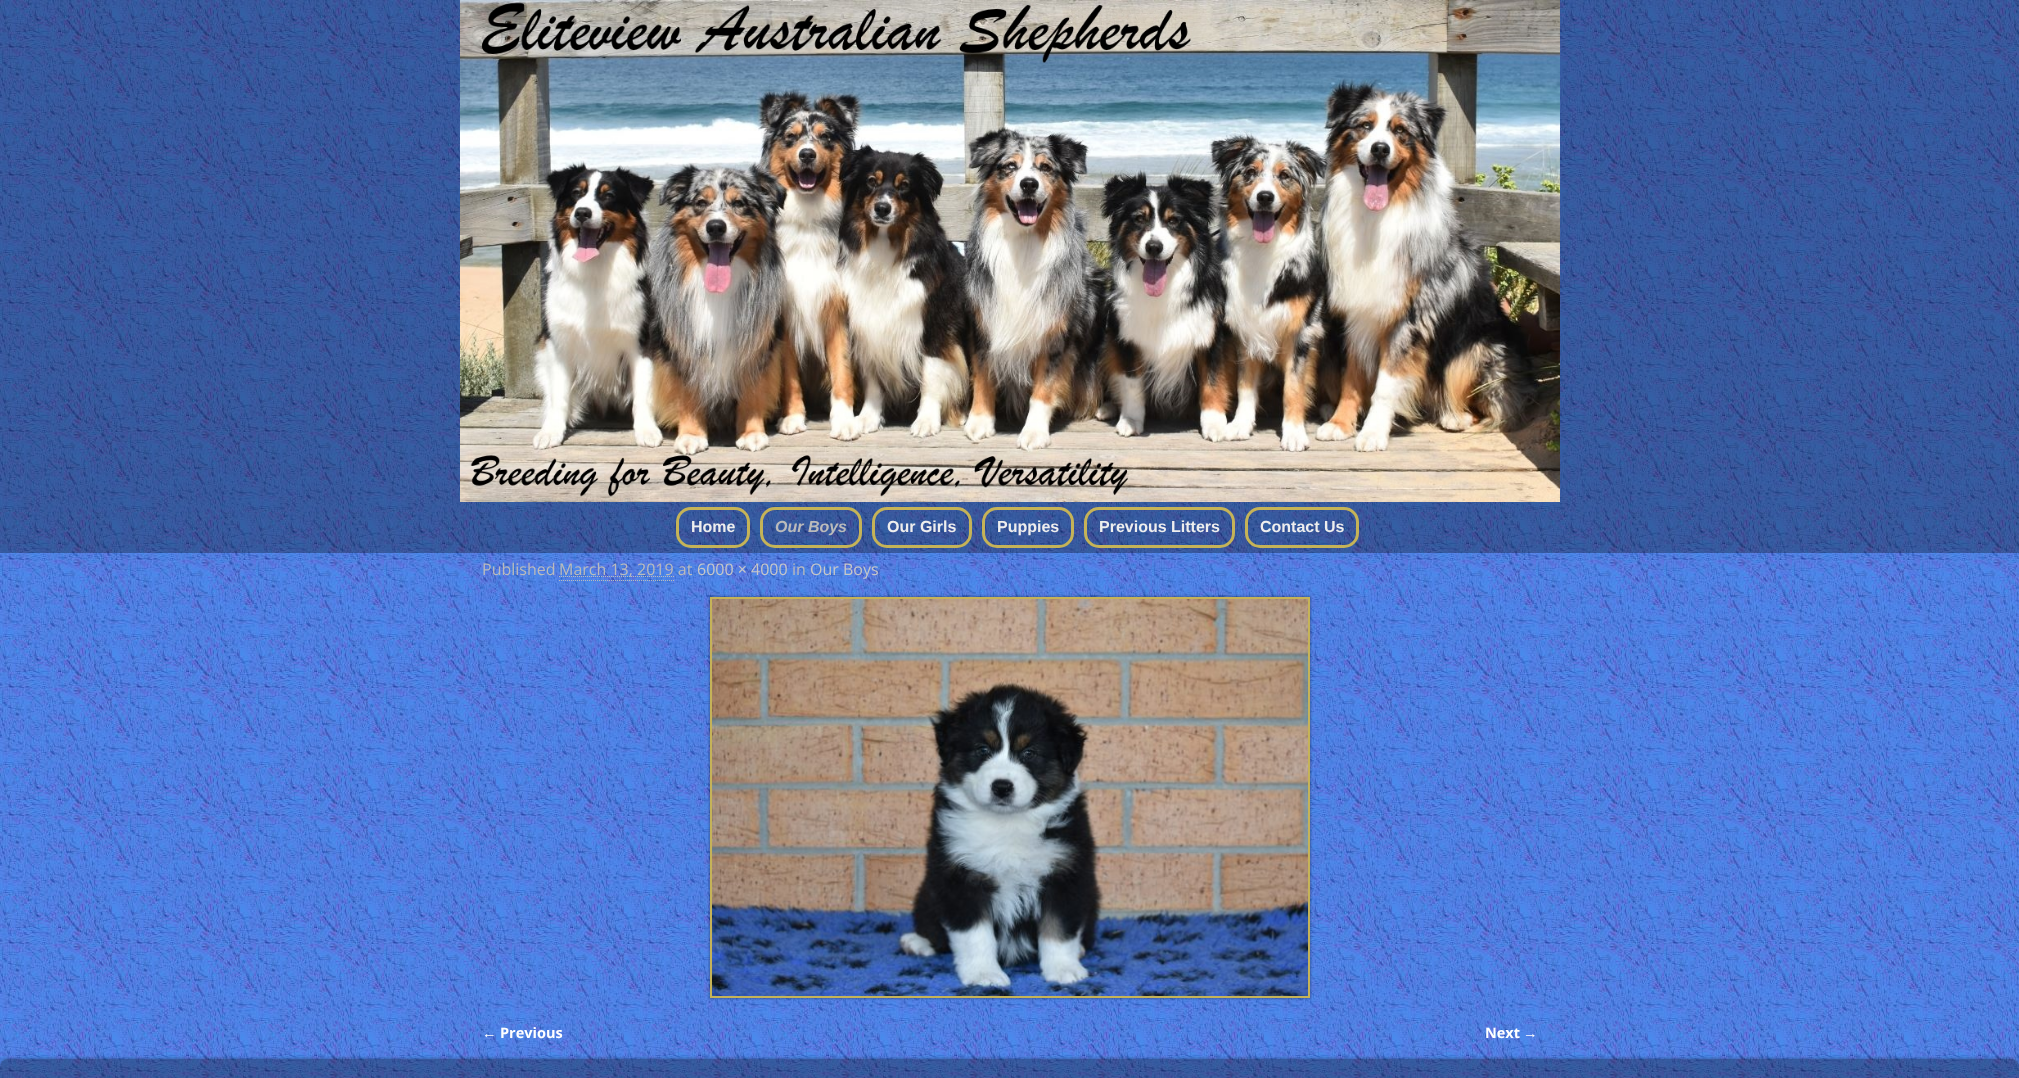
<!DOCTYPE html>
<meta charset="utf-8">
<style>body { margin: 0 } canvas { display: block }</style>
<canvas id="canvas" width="2019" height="1078"></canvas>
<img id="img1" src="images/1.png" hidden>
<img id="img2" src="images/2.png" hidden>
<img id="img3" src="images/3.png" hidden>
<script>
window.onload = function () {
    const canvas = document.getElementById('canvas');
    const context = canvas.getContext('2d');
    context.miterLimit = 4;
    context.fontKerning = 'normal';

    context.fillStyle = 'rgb(255, 255, 255)';
    context.fillRect(0, 0, 2019, 1078);
    context.drawImage(document.getElementById('img1'), 0, 0, 2019, 1078);
    context.fillStyle = 'rgba(0, 0, 0, 0.3)';
    context.fillRect(0, 0, 2019, 553);
    context.drawImage(document.getElementById('img2'), 460, 0, 1100, 502);
    context.beginPath();
    context.roundRect(677.5, 508.5, 71, 38, 13.5);
    context.strokeStyle = 'rgb(197, 179, 88)';
    context.lineWidth = 3;
    context.stroke();
    context.beginPath();
    context.roundRect(761.5, 508.5, 99, 38, 13.5);
    context.stroke();
    context.beginPath();
    context.roundRect(873.5, 508.5, 97, 38, 13.5);
    context.stroke();
    context.beginPath();
    context.roundRect(983.5, 508.5, 89, 38, 13.5);
    context.stroke();
    context.beginPath();
    context.roundRect(1085.5, 508.5, 148, 38, 13.5);
    context.stroke();
    context.beginPath();
    context.roundRect(1246.5, 508.5, 111, 38, 13.5);
    context.stroke();
    context.beginPath();
    context.moveTo(559, 580.5);
    context.lineTo(674, 580.5);
    context.strokeStyle = 'rgb(187, 187, 187)';
    context.lineWidth = 1;
    context.setLineDash([1, 1]);
    context.stroke();
    context.beginPath();
    context.moveTo(559, 576.5);
    context.lineTo(674, 576.5);
    context.stroke();
    context.fillStyle = 'rgba(0, 0, 0, 0.25)';
    context.filter = 'blur(1px)';
    context.beginPath();
    context.rect(709, 596, 602, 403);
    context.fill();
    context.filter = 'none';
    context.fillStyle = 'rgb(197, 179, 88)';
    context.fillRect(710, 597, 600, 401);
    context.drawImage(document.getElementById('img3'), 712, 599, 596, 397);
    context.save();
    context.beginPath();
    context.moveTo(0, 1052);
    context.lineTo(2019, 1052);
    context.lineTo(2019, 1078);
    context.lineTo(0, 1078);
    context.closePath();
    context.moveTo(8, 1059);
    context.lineTo(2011, 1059);
    context.bezierCurveTo(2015.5, 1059, 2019, 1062.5, 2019, 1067);
    context.lineTo(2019, 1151);
    context.bezierCurveTo(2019, 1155.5, 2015.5, 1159, 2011, 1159);
    context.lineTo(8, 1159);
    context.bezierCurveTo(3.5, 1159, 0, 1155.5, 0, 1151);
    context.lineTo(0, 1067);
    context.bezierCurveTo(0, 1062.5, 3.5, 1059, 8, 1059);
    context.closePath();
    context.clip('evenodd');
    context.fillStyle = 'rgba(0, 0, 0, 0.25)';
    context.filter = 'blur(1.5px)';
    context.beginPath();
    context.roundRect(-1, 1058, 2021, 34, 9);
    context.fill();
    context.filter = 'none';
    context.restore();
    context.fillStyle = 'rgba(0, 0, 0, 0.3)';
    context.beginPath();
    context.roundRect(0, 1059, 2019, 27, 8);
    context.fill();
    context.font = 'bold 16px Liberation Sans';
    context.fillStyle = 'rgb(238, 238, 238)';
    context.fillText('Home', 691, 532);
    context.font = 'italic bold 16px Liberation Sans';
    context.fillStyle = 'rgb(187, 187, 187)';
    context.fillText('Our Boys', 775, 532);
    context.font = 'bold 16px Liberation Sans';
    context.fillStyle = 'rgb(238, 238, 238)';
    context.fillText('Our Girls', 887, 532);
    context.fillText('Puppies', 997, 532);
    context.fillText('Previous Litters', 1099, 532);
    context.fillText('Contact Us', 1260, 532);
    context.font = '16px Open Sans';
    context.fillStyle = 'rgb(187, 187, 187)';
    context.fillText('Published', 482, 575);
    context.fillText('March 13, 2019 at', 559, 575);
    context.fillStyle = 'rgb(199, 199, 199)';
    context.fillText('6000 × 4000', 697, 575);
    context.fillStyle = 'rgb(187, 187, 187)';
    context.fillText('in', 792, 575);
    context.fillStyle = 'rgb(199, 199, 199)';
    context.fillText('Our Boys', 810, 575);
    context.font = 'bold 14.5px Liberation Sans';
    context.fillStyle = 'rgb(255, 255, 255)';
    context.fillText('←', 482, 1038);
    context.font = 'bold 14.5px Open Sans';
    context.fillText('Previous', 500, 1038);
    context.fillText('Next', 1485, 1038);
    context.font = 'bold 14.5px Liberation Sans';
    context.fillText('→', 1523, 1038);
};
</script>
